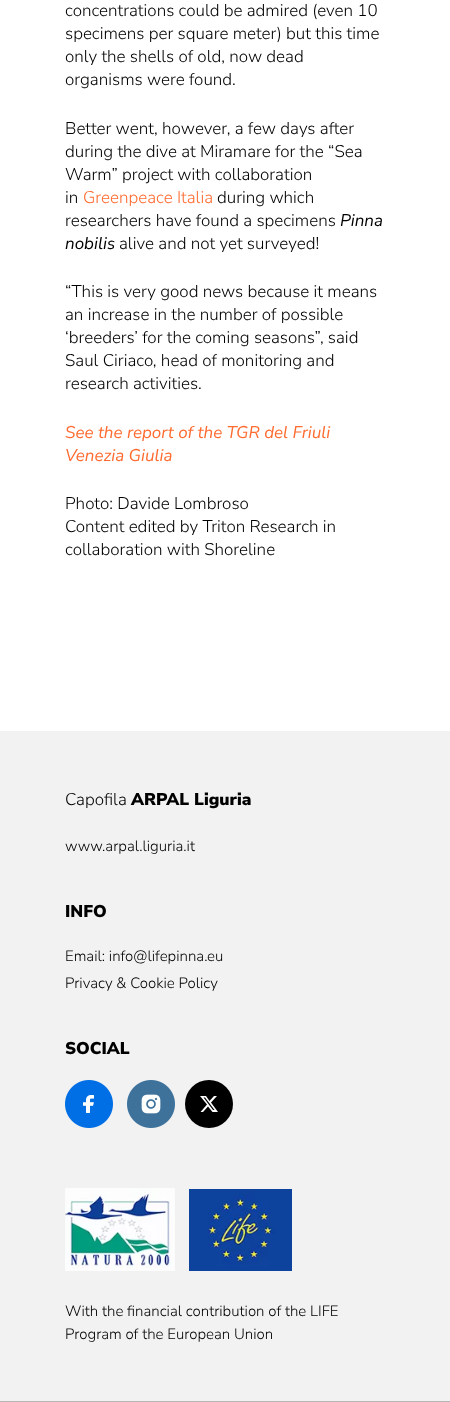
<!DOCTYPE html>
<meta charset="utf-8">
<style>body { margin: 0 } canvas { display: block }</style>
<canvas id="canvas" width="450" height="1402"></canvas>
<img id="img1" src="images/1.png" hidden>
<img id="img2" src="images/2.png" hidden>
<img id="img3" src="images/3.png" hidden>
<img id="img4" src="images/4.png" hidden>
<script>
window.onload = function () {
    const canvas = document.getElementById('canvas');
    const context = canvas.getContext('2d');
    context.miterLimit = 4;
    context.fontKerning = 'normal';

    context.fillStyle = 'rgb(255, 255, 255)';
    context.fillRect(0, 0, 450, 1402);
    context.fillStyle = 'rgb(242, 242, 242)';
    context.fillRect(0, 731, 450, 670);
    context.drawImage(document.getElementById('img1'), 65, 1080, 48, 48);
    context.drawImage(document.getElementById('img2'), 127, 1080, 48, 48);
    context.fillStyle = 'rgb(0, 0, 0)';
    context.beginPath();
    context.arc(209, 1104, 24, 0, 2 * Math.PI);
    context.fill();
    context.fillStyle = 'rgb(255, 255, 255)';
    context.beginPath();
    context.moveTo(214, 1096);
    context.lineTo(217, 1096);
    context.lineTo(211, 1102.5);
    context.lineTo(218, 1112);
    context.lineTo(212.5, 1112);
    context.lineTo(208, 1106.5);
    context.lineTo(203, 1112);
    context.lineTo(200.5, 1112);
    context.lineTo(207, 1104.5);
    context.lineTo(200, 1096);
    context.lineTo(206, 1096);
    context.lineTo(209.5, 1101);
    context.closePath();
    context.moveTo(213, 1110);
    context.lineTo(214.5, 1110);
    context.lineTo(205, 1097.5);
    context.lineTo(203.5, 1097.5);
    context.closePath();
    context.fill();
    context.drawImage(document.getElementById('img3'), 65, 1188, 110, 83);
    context.drawImage(document.getElementById('img4'), 189, 1189, 103, 82);
    context.fillStyle = 'rgb(181, 181, 181)';
    context.fillRect(0, 1401, 450, 1);
    context.font = '300 17px Nunito Sans';
    context.fillStyle = 'rgb(0, 0, 0)';
    context.fillText('concentrations could be admired (even 10', 65, 16);
    context.fillText('specimens per square meter) but this time', 65, 39);
    context.fillText('only the shells of old, now dead', 65, 62);
    context.fillText('organisms were found.', 65, 85);
    context.fillText('Better went, however, a few days after', 65, 134);
    context.fillText('during the dive at Miramare for the “Sea', 65, 157);
    context.fillText('Warm” project with collaboration', 65, 180);
    context.fillText('in', 65, 203);
    context.fillStyle = 'rgb(255, 107, 48)';
    context.fillText('Greenpeace Italia', 83, 203);
    context.fillStyle = 'rgb(0, 0, 0)';
    context.fillText('during which', 217, 203);
    context.fillText('researchers have found a specimens', 65, 226);
    context.font = 'italic 17px Nunito Sans';
    context.fillText('Pinna', 340, 226);
    context.fillText('nobilis', 65, 249);
    context.font = '300 17px Nunito Sans';
    context.fillText('alive and not yet surveyed!', 119, 249);
    context.fillText('“This is very good news because it means', 65, 297);
    context.fillText('an increase in the number of possible', 65, 320);
    context.fillText('‘breeders’ for the coming seasons”, said', 65, 343);
    context.fillText('Saul Ciriaco, head of monitoring and', 65, 366);
    context.fillText('research activities.', 65, 389);
    context.font = 'italic 17px Nunito Sans';
    context.fillStyle = 'rgb(255, 107, 48)';
    context.fillText('See the report of the TGR del Friuli', 65, 438);
    context.fillText('Venezia Giulia', 65, 461);
    context.font = '300 17px Nunito Sans';
    context.fillStyle = 'rgb(0, 0, 0)';
    context.fillText('Photo: Davide Lombroso', 65, 509);
    context.fillText('Content edited by Triton Research in', 65, 532);
    context.fillText('collaboration with Shoreline', 65, 555);
    context.fillText('Capofila', 65, 805);
    context.font = '900 17px Nunito Sans';
    context.fillText('ARPAL Liguria', 131, 805);
    context.font = '300 15px Nunito Sans';
    context.fillText('www.arpal.liguria.it', 65, 851);
    context.font = '900 17px Nunito Sans';
    context.fillText('INFO', 65, 917);
    context.font = '300 15px Nunito Sans';
    context.fillText('Email: info@lifepinna.eu', 65, 961);
    context.fillText('Privacy & Cookie Policy', 65, 988);
    context.font = '900 17px Nunito Sans';
    context.fillText('SOCIAL', 65, 1054);
    context.font = '300 15px Nunito Sans';
    context.fillText('With the financial contribution of the LIFE', 65, 1316);
    context.fillText('Program of the European Union', 65, 1339);
};
</script>
